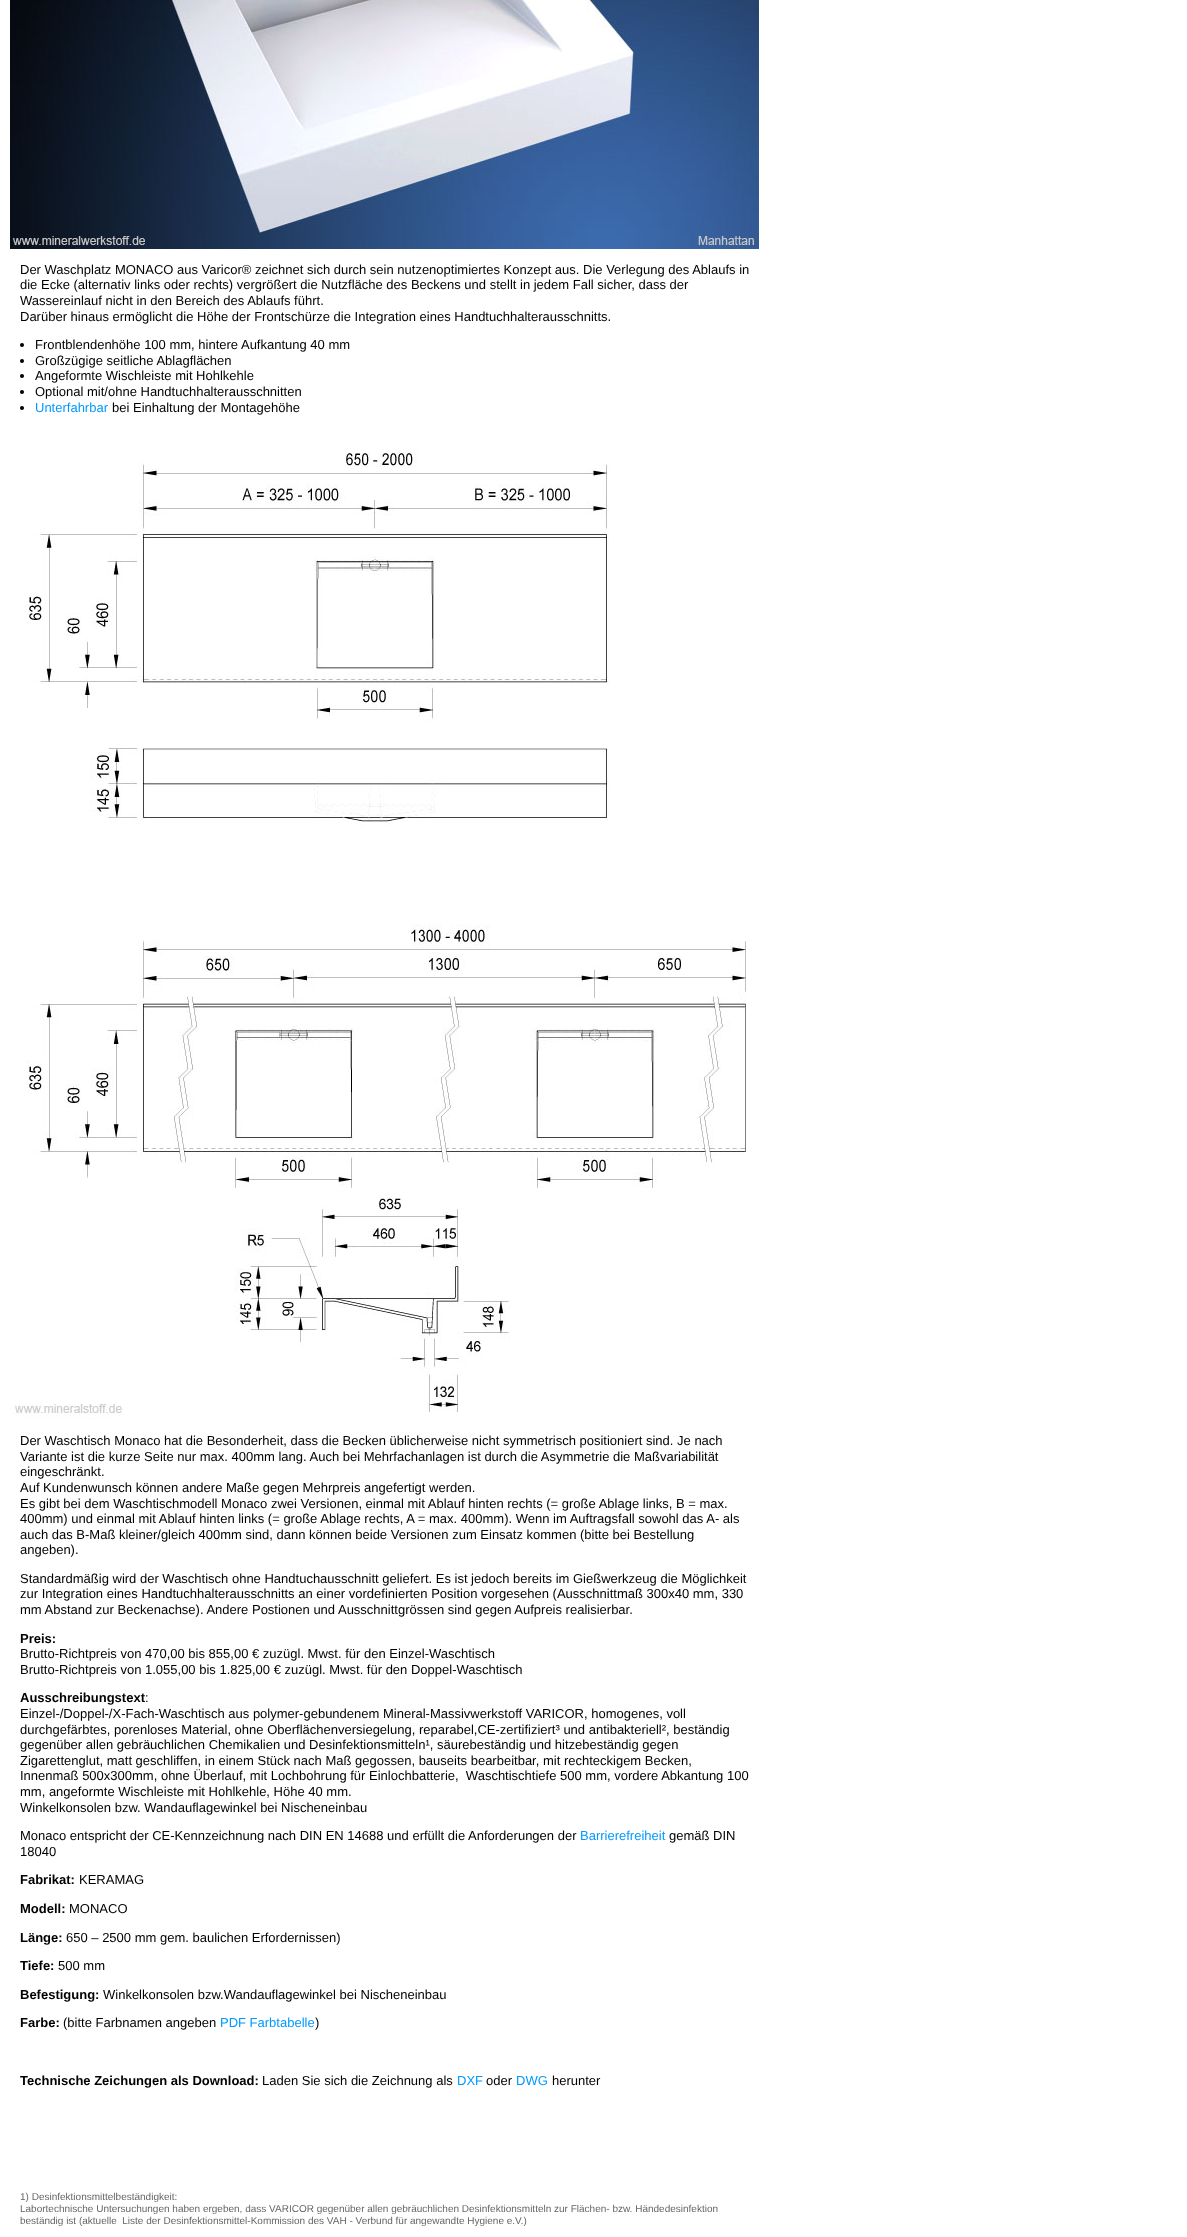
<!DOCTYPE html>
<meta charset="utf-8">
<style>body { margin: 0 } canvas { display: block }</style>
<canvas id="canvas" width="1187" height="2237"></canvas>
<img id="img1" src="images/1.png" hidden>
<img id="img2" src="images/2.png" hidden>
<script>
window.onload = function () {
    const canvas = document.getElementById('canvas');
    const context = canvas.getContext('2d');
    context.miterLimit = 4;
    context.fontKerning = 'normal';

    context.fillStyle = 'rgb(255, 255, 255)';
    context.fillRect(0, 0, 1187, 2237);
    context.drawImage(document.getElementById('img1'), 10, 0, 749, 249);
    context.fillStyle = 'rgb(0, 0, 0)';
    context.beginPath();
    context.arc(22, 345, 2, 0, 2 * Math.PI);
    context.fill();
    context.beginPath();
    context.arc(22, 361, 2, 0, 2 * Math.PI);
    context.fill();
    context.beginPath();
    context.arc(22, 376, 2, 0, 2 * Math.PI);
    context.fill();
    context.beginPath();
    context.arc(22, 392, 2, 0, 2 * Math.PI);
    context.fill();
    context.beginPath();
    context.arc(22, 408, 2, 0, 2 * Math.PI);
    context.fill();
    context.drawImage(document.getElementById('img2'), 12, 452, 734, 968);
    context.font = '13px Liberation Sans';
    context.fillText('Der Waschplatz MONACO aus Varicor® zeichnet sich durch sein nutzenoptimiertes Konzept aus. Die Verlegung des Ablaufs in', 20, 274);
    context.fillText('die Ecke (alternativ links oder rechts) vergrößert die Nutzfläche des Beckens und stellt in jedem Fall sicher, dass der', 20, 289);
    context.fillText('Wassereinlauf nicht in den Bereich des Ablaufs führt.', 20, 305);
    context.fillText('Darüber hinaus ermöglicht die Höhe der Frontschürze die Integration eines Handtuchhalterausschnitts.', 20, 321);
    context.fillText('Frontblendenhöhe 100 mm, hintere Aufkantung 40 mm', 35, 349);
    context.fillText('Großzügige seitliche Ablagflächen', 35, 365);
    context.fillText('Angeformte Wischleiste mit Hohlkehle', 35, 380);
    context.fillText('Optional mit/ohne Handtuchhalterausschnitten', 35, 396);
    context.fillStyle = 'rgb(0, 153, 255)';
    context.fillText('Unterfahrbar', 35, 412);
    context.fillStyle = 'rgb(0, 0, 0)';
    context.fillText('bei Einhaltung der Montagehöhe', 112, 412);
    context.fillText('Der Waschtisch Monaco hat die Besonderheit, dass die Becken üblicherweise nicht symmetrisch positioniert sind. Je nach', 20, 1445);
    context.fillText('Variante ist die kurze Seite nur max. 400mm lang. Auch bei Mehrfachanlagen ist durch die Asymmetrie die Maßvariabilität', 20, 1461);
    context.fillText('eingeschränkt.', 20, 1476);
    context.fillText('Auf Kundenwunsch können andere Maße gegen Mehrpreis angefertigt werden.', 20, 1492);
    context.fillText('Es gibt bei dem Waschtischmodell Monaco zwei Versionen, einmal mit Ablauf hinten rechts (= große Ablage links, B = max.', 20, 1508);
    context.fillText('400mm) und einmal mit Ablauf hinten links (= große Ablage rechts, A = max. 400mm). Wenn im Auftragsfall sowohl das A- als', 20, 1523);
    context.fillText('auch das B-Maß kleiner/gleich 400mm sind, dann können beide Versionen zum Einsatz kommen (bitte bei Bestellung', 20, 1539);
    context.fillText('angeben).', 20, 1554);
    context.fillText('Standardmäßig wird der Waschtisch ohne Handtuchausschnitt geliefert. Es ist jedoch bereits im Gießwerkzeug die Möglichkeit', 20, 1583);
    context.fillText('zur Integration eines Handtuchhalterausschnitts an einer vordefinierten Position vorgesehen (Ausschnittmaß 300x40 mm, 330', 20, 1598);
    context.fillText('mm Abstand zur Beckenachse). Andere Postionen und Ausschnittgrössen sind gegen Aufpreis realisierbar.', 20, 1614);
    context.font = 'bold 13px Liberation Sans';
    context.fillText('Preis:', 20, 1643);
    context.font = '13px Liberation Sans';
    context.fillText('Brutto-Richtpreis von 470,00 bis 855,00 € zuzügl. Mwst. für den Einzel-Waschtisch', 20, 1658);
    context.fillText('Brutto-Richtpreis von 1.055,00 bis 1.825,00 € zuzügl. Mwst. für den Doppel-Waschtisch', 20, 1674);
    context.font = 'bold 13px Liberation Sans';
    context.fillText('Ausschreibungstext', 20, 1702);
    context.font = '13px Liberation Sans';
    context.fillText(':', 145, 1702);
    context.fillText('Einzel-/Doppel-/X-Fach-Waschtisch aus polymer-gebundenem Mineral-Massivwerkstoff VARICOR, homogenes, voll', 20, 1718);
    context.fillText('durchgefärbtes, porenloses Material, ohne Oberflächenversiegelung, reparabel,CE-zertifiziert³ und antibakteriell², beständig', 20, 1734);
    context.fillText('gegenüber allen gebräuchlichen Chemikalien und Desinfektionsmitteln¹, säurebeständig und hitzebeständig gegen', 20, 1749);
    context.fillText('Zigarettenglut, matt geschliffen, in einem Stück nach Maß gegossen, bauseits bearbeitbar, mit rechteckigem Becken,', 20, 1765);
    context.fillText('Innenmaß 500x300mm, ohne Überlauf, mit Lochbohrung für Einlochbatterie,  Waschtischtiefe 500 mm, vordere Abkantung 100', 20, 1780);
    context.fillText('mm, angeformte Wischleiste mit Hohlkehle, Höhe 40 mm.', 20, 1796);
    context.fillText('Winkelkonsolen bzw. Wandauflagewinkel bei Nischeneinbau', 20, 1812);
    context.fillText('Monaco entspricht der CE-Kennzeichnung nach DIN EN 14688 und erfüllt die Anforderungen der', 20, 1840);
    context.fillStyle = 'rgb(0, 153, 255)';
    context.fillText('Barrierefreiheit', 580, 1840);
    context.fillStyle = 'rgb(0, 0, 0)';
    context.fillText('gemäß DIN', 669, 1840);
    context.fillText('18040', 20, 1856);
    context.font = 'bold 13px Liberation Sans';
    context.fillText('Fabrikat:', 20, 1884);
    context.font = '13px Liberation Sans';
    context.fillText('KERAMAG', 79, 1884);
    context.font = 'bold 13px Liberation Sans';
    context.fillText('Modell:', 20, 1913);
    context.font = '13px Liberation Sans';
    context.fillText('MONACO', 69, 1913);
    context.font = 'bold 13px Liberation Sans';
    context.fillText('Länge:', 20, 1942);
    context.font = '13px Liberation Sans';
    context.fillText('650 – 2500 mm gem. baulichen Erfordernissen)', 66, 1942);
    context.font = 'bold 13px Liberation Sans';
    context.fillText('Tiefe:', 20, 1970);
    context.font = '13px Liberation Sans';
    context.fillText('500 mm', 58, 1970);
    context.font = 'bold 13px Liberation Sans';
    context.fillText('Befestigung:', 20, 1999);
    context.font = '13px Liberation Sans';
    context.fillText('Winkelkonsolen bzw.Wandauflagewinkel bei Nischeneinbau', 103, 1999);
    context.font = 'bold 13px Liberation Sans';
    context.fillText('Farbe:', 20, 2027);
    context.font = '13px Liberation Sans';
    context.fillText('(bitte Farbnamen angeben', 63, 2027);
    context.fillStyle = 'rgb(0, 153, 255)';
    context.fillText('PDF Farbtabelle', 220, 2027);
    context.fillStyle = 'rgb(0, 0, 0)';
    context.fillText(')', 315, 2027);
    context.font = 'bold 13px Liberation Sans';
    context.fillText('Technische Zeichungen als Download:', 20, 2085);
    context.font = '13px Liberation Sans';
    context.fillText('Laden Sie sich die Zeichnung als', 262, 2085);
    context.fillStyle = 'rgb(0, 153, 255)';
    context.fillText('DXF', 457, 2085);
    context.fillStyle = 'rgb(0, 0, 0)';
    context.fillText('oder', 486, 2085);
    context.fillStyle = 'rgb(0, 153, 255)';
    context.fillText('DWG', 516, 2085);
    context.fillStyle = 'rgb(0, 0, 0)';
    context.fillText('herunter', 552, 2085);
    context.font = '10px Liberation Sans';
    context.fillStyle = 'rgb(102, 102, 102)';
    context.fillText('1) Desinfektionsmittelbeständigkeit:', 20, 2200);
    context.fillText('Labortechnische Untersuchungen haben ergeben, dass VARICOR gegenüber allen gebräuchlichen Desinfektionsmitteln zur Flächen- bzw. Händedesinfektion', 20, 2212);
    context.fillText('beständig ist (aktuelle  Liste der Desinfektionsmittel-Kommission des VAH - Verbund für angewandte Hygiene e.V.)', 20, 2224);
};
</script>
